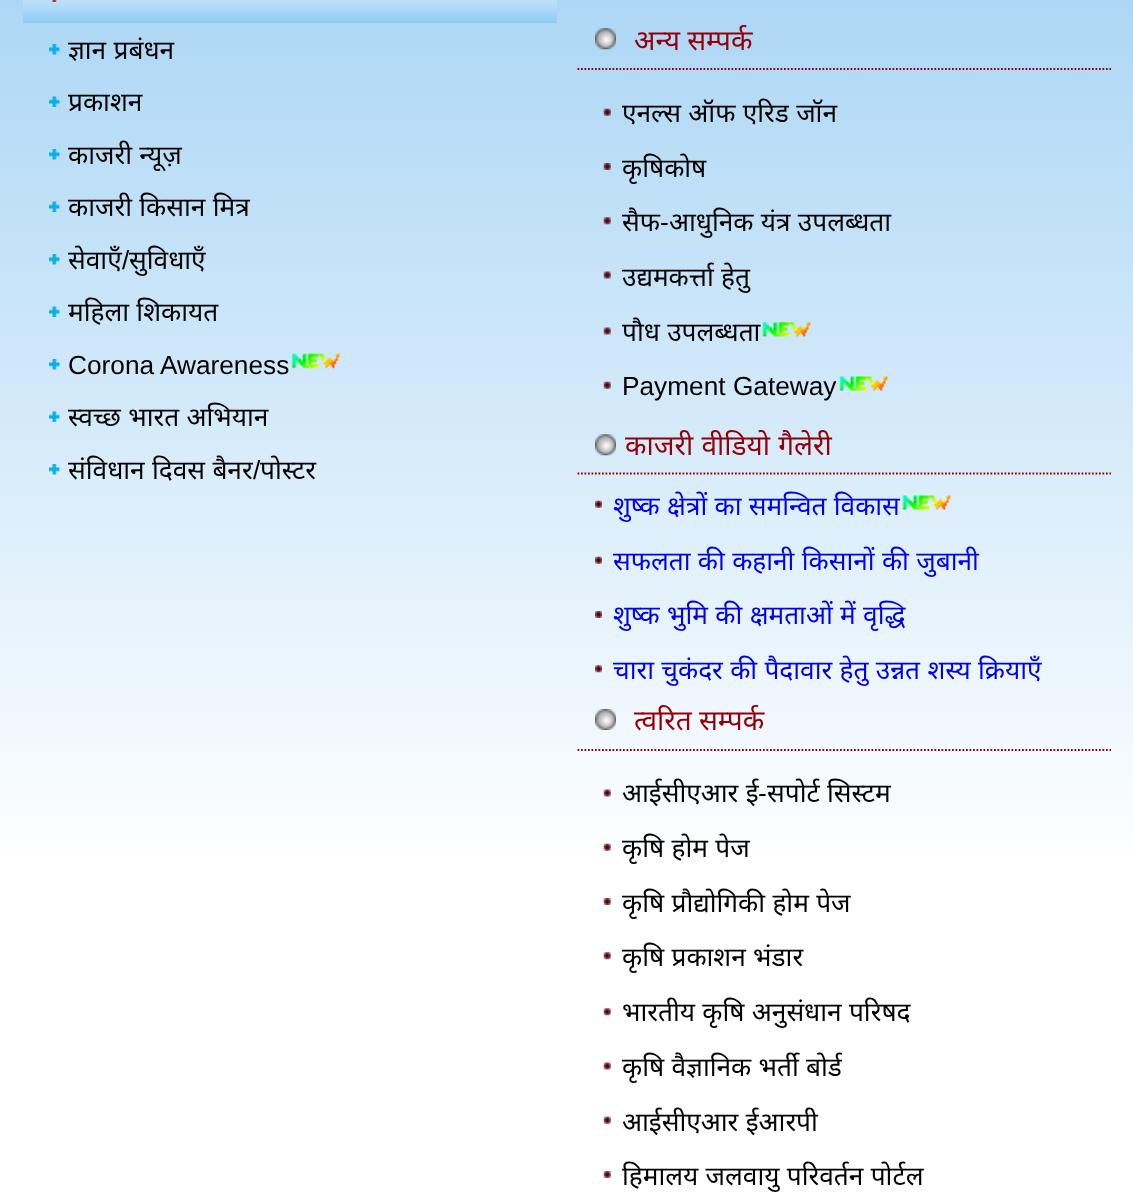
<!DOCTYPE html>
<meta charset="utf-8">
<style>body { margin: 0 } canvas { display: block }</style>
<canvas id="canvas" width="1133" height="1199"></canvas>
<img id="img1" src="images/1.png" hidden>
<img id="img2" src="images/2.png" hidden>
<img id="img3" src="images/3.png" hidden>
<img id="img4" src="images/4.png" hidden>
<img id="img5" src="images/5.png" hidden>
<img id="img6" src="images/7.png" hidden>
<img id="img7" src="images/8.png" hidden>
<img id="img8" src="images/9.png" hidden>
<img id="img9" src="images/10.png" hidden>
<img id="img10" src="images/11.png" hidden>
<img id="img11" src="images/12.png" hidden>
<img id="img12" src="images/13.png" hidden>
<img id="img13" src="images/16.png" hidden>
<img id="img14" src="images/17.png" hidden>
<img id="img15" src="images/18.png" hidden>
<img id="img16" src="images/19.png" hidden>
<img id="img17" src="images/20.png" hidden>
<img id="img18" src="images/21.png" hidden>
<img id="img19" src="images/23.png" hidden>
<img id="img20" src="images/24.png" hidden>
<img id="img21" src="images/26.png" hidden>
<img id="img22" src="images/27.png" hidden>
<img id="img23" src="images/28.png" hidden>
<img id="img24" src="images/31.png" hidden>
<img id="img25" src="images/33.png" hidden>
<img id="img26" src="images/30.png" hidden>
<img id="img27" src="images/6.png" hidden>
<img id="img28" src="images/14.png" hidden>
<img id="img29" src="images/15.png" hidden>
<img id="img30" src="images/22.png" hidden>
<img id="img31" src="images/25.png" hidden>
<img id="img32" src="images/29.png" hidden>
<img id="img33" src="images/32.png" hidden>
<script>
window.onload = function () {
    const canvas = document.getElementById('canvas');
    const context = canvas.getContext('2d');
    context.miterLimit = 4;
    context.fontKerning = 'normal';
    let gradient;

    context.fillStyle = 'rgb(255, 255, 255)';
    context.fillRect(0, 0, 1133, 1199);
    gradient = context.createLinearGradient(567, 0, 567, 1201);
    gradient.addColorStop(0, 'rgb(173, 215, 245)');
    gradient.addColorStop(0.73, 'rgb(255, 255, 255)');
    context.fillStyle = gradient;
    context.fillRect(0, 0, 1133, 850);
    gradient = context.createLinearGradient(290, -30, 290, 23);
    gradient.addColorStop(0, 'rgb(193, 227, 250)');
    gradient.addColorStop(0.5, 'rgb(193, 227, 250)');
    gradient.addColorStop(0.6, 'rgb(189, 224, 250)');
    gradient.addColorStop(1, 'rgb(141, 203, 246)');
    context.fillStyle = gradient;
    context.fillRect(23, 0, 534, 23);
    context.drawImage(document.getElementById('img1'), 52, 0, 5, 2);
    context.drawImage(document.getElementById('img2'), 49, 44, 11, 11);
    context.drawImage(document.getElementById('img3'), 49, 96, 11, 11);
    context.drawImage(document.getElementById('img4'), 49, 149, 11, 11);
    context.drawImage(document.getElementById('img5'), 49, 201, 11, 11);
    context.drawImage(document.getElementById('img6'), 49, 306, 11, 11);
    context.drawImage(document.getElementById('img7'), 49, 359, 11, 11);
    context.drawImage(document.getElementById('img8'), 291, 353, 49, 16);
    context.drawImage(document.getElementById('img9'), 49, 411, 11, 11);
    context.drawImage(document.getElementById('img10'), 49, 464, 11, 11);
    context.beginPath();
    context.moveTo(577.5, 69);
    context.lineTo(1111, 69);
    context.strokeStyle = 'rgb(148, 0, 7)';
    context.lineWidth = 1.8;
    context.setLineDash([1.75, 1.75]);
    context.stroke();
    context.drawImage(document.getElementById('img11'), 595, 28, 21, 22);
    context.drawImage(document.getElementById('img12'), 603, 108, 8, 8);
    context.drawImage(document.getElementById('img13'), 603, 271, 8, 8);
    context.drawImage(document.getElementById('img14'), 603, 327, 8, 8);
    context.drawImage(document.getElementById('img15'), 762, 321, 49, 16);
    context.drawImage(document.getElementById('img16'), 603, 381, 8, 8);
    context.drawImage(document.getElementById('img17'), 839, 376, 49, 15);
    context.beginPath();
    context.moveTo(577.5, 473.5);
    context.lineTo(1111, 473.5);
    context.stroke();
    context.drawImage(document.getElementById('img18'), 595, 434, 21, 22);
    context.drawImage(document.getElementById('img19'), 902, 495, 49, 15);
    context.drawImage(document.getElementById('img20'), 595, 556, 7, 8);
    context.drawImage(document.getElementById('img21'), 595, 665, 7, 8);
    context.beginPath();
    context.moveTo(577.5, 750);
    context.lineTo(1111, 750);
    context.stroke();
    context.drawImage(document.getElementById('img22'), 595, 709, 21, 21);
    context.drawImage(document.getElementById('img23'), 603, 789, 8, 8);
    context.drawImage(document.getElementById('img24'), 603, 1008, 8, 8);
    context.drawImage(document.getElementById('img25'), 603, 1116, 8, 8);
    context.drawImage(document.getElementById('img26'), 603, 1171, 8, 7);
    context.wordSpacing = '0.5px';
    context.font = '26.25px Noto Sans';
    context.fillStyle = 'rgb(0, 0, 0)';
    context.fillText('ज्ञान प्रबंधन', 68, 59);
    context.wordSpacing = '0px';
    context.fillText('प्रकाशन', 68, 111);
    context.wordSpacing = '0.5px';
    context.fillText('काजरी न्यूज़', 68, 164);
    context.fillText('काजरी किसान मित्र', 68, 216);
    context.wordSpacing = '0px';
    context.fillText('सेवाएँ', 68, 269);
    context.drawImage(document.getElementById('img27'), 49, 254, 11, 11);
    context.font = '26.25px Liberation Sans';
    context.fillText('/', 122, 269);
    context.font = '26.25px Noto Sans';
    context.fillText('सुविधाएँ', 129, 269);
    context.wordSpacing = '0.5px';
    context.fillText('महिला शिकायत', 68, 321);
    context.wordSpacing = '0px';
    context.font = '26.25px Liberation Sans';
    context.fillText('Corona Awareness', 68, 374);
    context.wordSpacing = '0.5px';
    context.font = '26.25px Noto Sans';
    context.fillText('स्वच्छ भारत अभियान', 68, 426);
    context.fillText('संविधान दिवस बैनर', 68, 479);
    context.wordSpacing = '0px';
    context.font = '26.25px Liberation Sans';
    context.fillText('/', 253, 479);
    context.font = '26.25px Noto Sans';
    context.fillText('पोस्टर', 260, 479);
    context.font = '28px Noto Sans';
    context.fillStyle = 'rgb(148, 0, 7)';
    context.fillText('अन्य सम्पर्क', 634, 50);
    context.wordSpacing = '0.5px';
    context.font = '26.25px Noto Sans';
    context.fillStyle = 'rgb(0, 0, 0)';
    context.fillText('एनल्स ऑफ एरिड जॉन', 622, 122);
    context.wordSpacing = '0px';
    context.fillText('कृषिकोष', 622, 177);
    context.drawImage(document.getElementById('img28'), 603, 163, 8, 7);
    context.fillText('सैफ', 622, 231);
    context.drawImage(document.getElementById('img29'), 603, 217, 8, 8);
    context.font = '26.25px Liberation Sans';
    context.fillText('-', 660, 231);
    context.wordSpacing = '0.5px';
    context.font = '26.25px Noto Sans';
    context.fillText('आधुनिक यंत्र उपलब्धता', 669, 231);
    context.fillText('उद्यमकर्त्ता हेतु', 622, 286);
    context.fillText('पौध उपलब्धता', 622, 341);
    context.wordSpacing = '0px';
    context.font = '26.25px Liberation Sans';
    context.fillText('Payment Gateway', 622, 395);
    context.wordSpacing = '1px';
    context.font = '28px Noto Sans';
    context.fillStyle = 'rgb(148, 0, 7)';
    context.fillText('काजरी वीडियो गैलेरी', 625, 455);
    context.wordSpacing = '0.5px';
    context.font = '26.25px Noto Sans';
    context.fillStyle = 'rgb(0, 0, 238)';
    context.fillText('शुष्क क्षेत्रों का समन्वित विकास', 613, 515);
    context.drawImage(document.getElementById('img30'), 595, 500, 7, 8);
    context.fillText('सफलता की कहानी किसानों की जुबानी', 613, 570);
    context.fillText('शुष्क भुमि की क्षमताओं में वृद्धि', 613, 624);
    context.drawImage(document.getElementById('img31'), 595, 611, 7, 7);
    context.fillText('चारा चुकंदर की पैदावार हेतु उन्नत शस्य क्रियाएँ', 613, 679);
    context.wordSpacing = '0px';
    context.font = '28px Noto Sans';
    context.fillStyle = 'rgb(148, 0, 7)';
    context.fillText('त्वरित सम्पर्क', 634, 730);
    context.wordSpacing = '0.5px';
    context.font = '26.25px Noto Sans';
    context.fillStyle = 'rgb(0, 0, 0)';
    context.fillText('आईसीएआर ई', 622, 802);
    context.wordSpacing = '0px';
    context.font = '26.25px Liberation Sans';
    context.fillText('-', 758, 802);
    context.wordSpacing = '0.5px';
    context.font = '26.25px Noto Sans';
    context.fillText('सपोर्ट सिस्टम', 767, 802);
    context.fillText('कृषि होम पेज', 622, 857);
    context.drawImage(document.getElementById('img32'), 603, 843, 8, 8);
    context.fillText('कृषि प्रौद्योगिकी होम पेज', 622, 912);
    context.drawImage(document.getElementById('img26'), 603, 898, 8, 7);
    context.fillText('कृषि प्रकाशन भंडार', 622, 966);
    context.drawImage(document.getElementById('img24'), 603, 952, 8, 8);
    context.fillText('भारतीय कृषि अनुसंधान परिषद', 622, 1021);
    context.fillText('कृषि वैज्ञानिक भर्ती बोर्ड', 622, 1076);
    context.drawImage(document.getElementById('img33'), 603, 1062, 8, 8);
    context.fillText('आईसीएआर ईआरपी', 622, 1131);
    context.fillText('हिमालय जलवायु परिवर्तन पोर्टल', 622, 1185);
};
</script>
